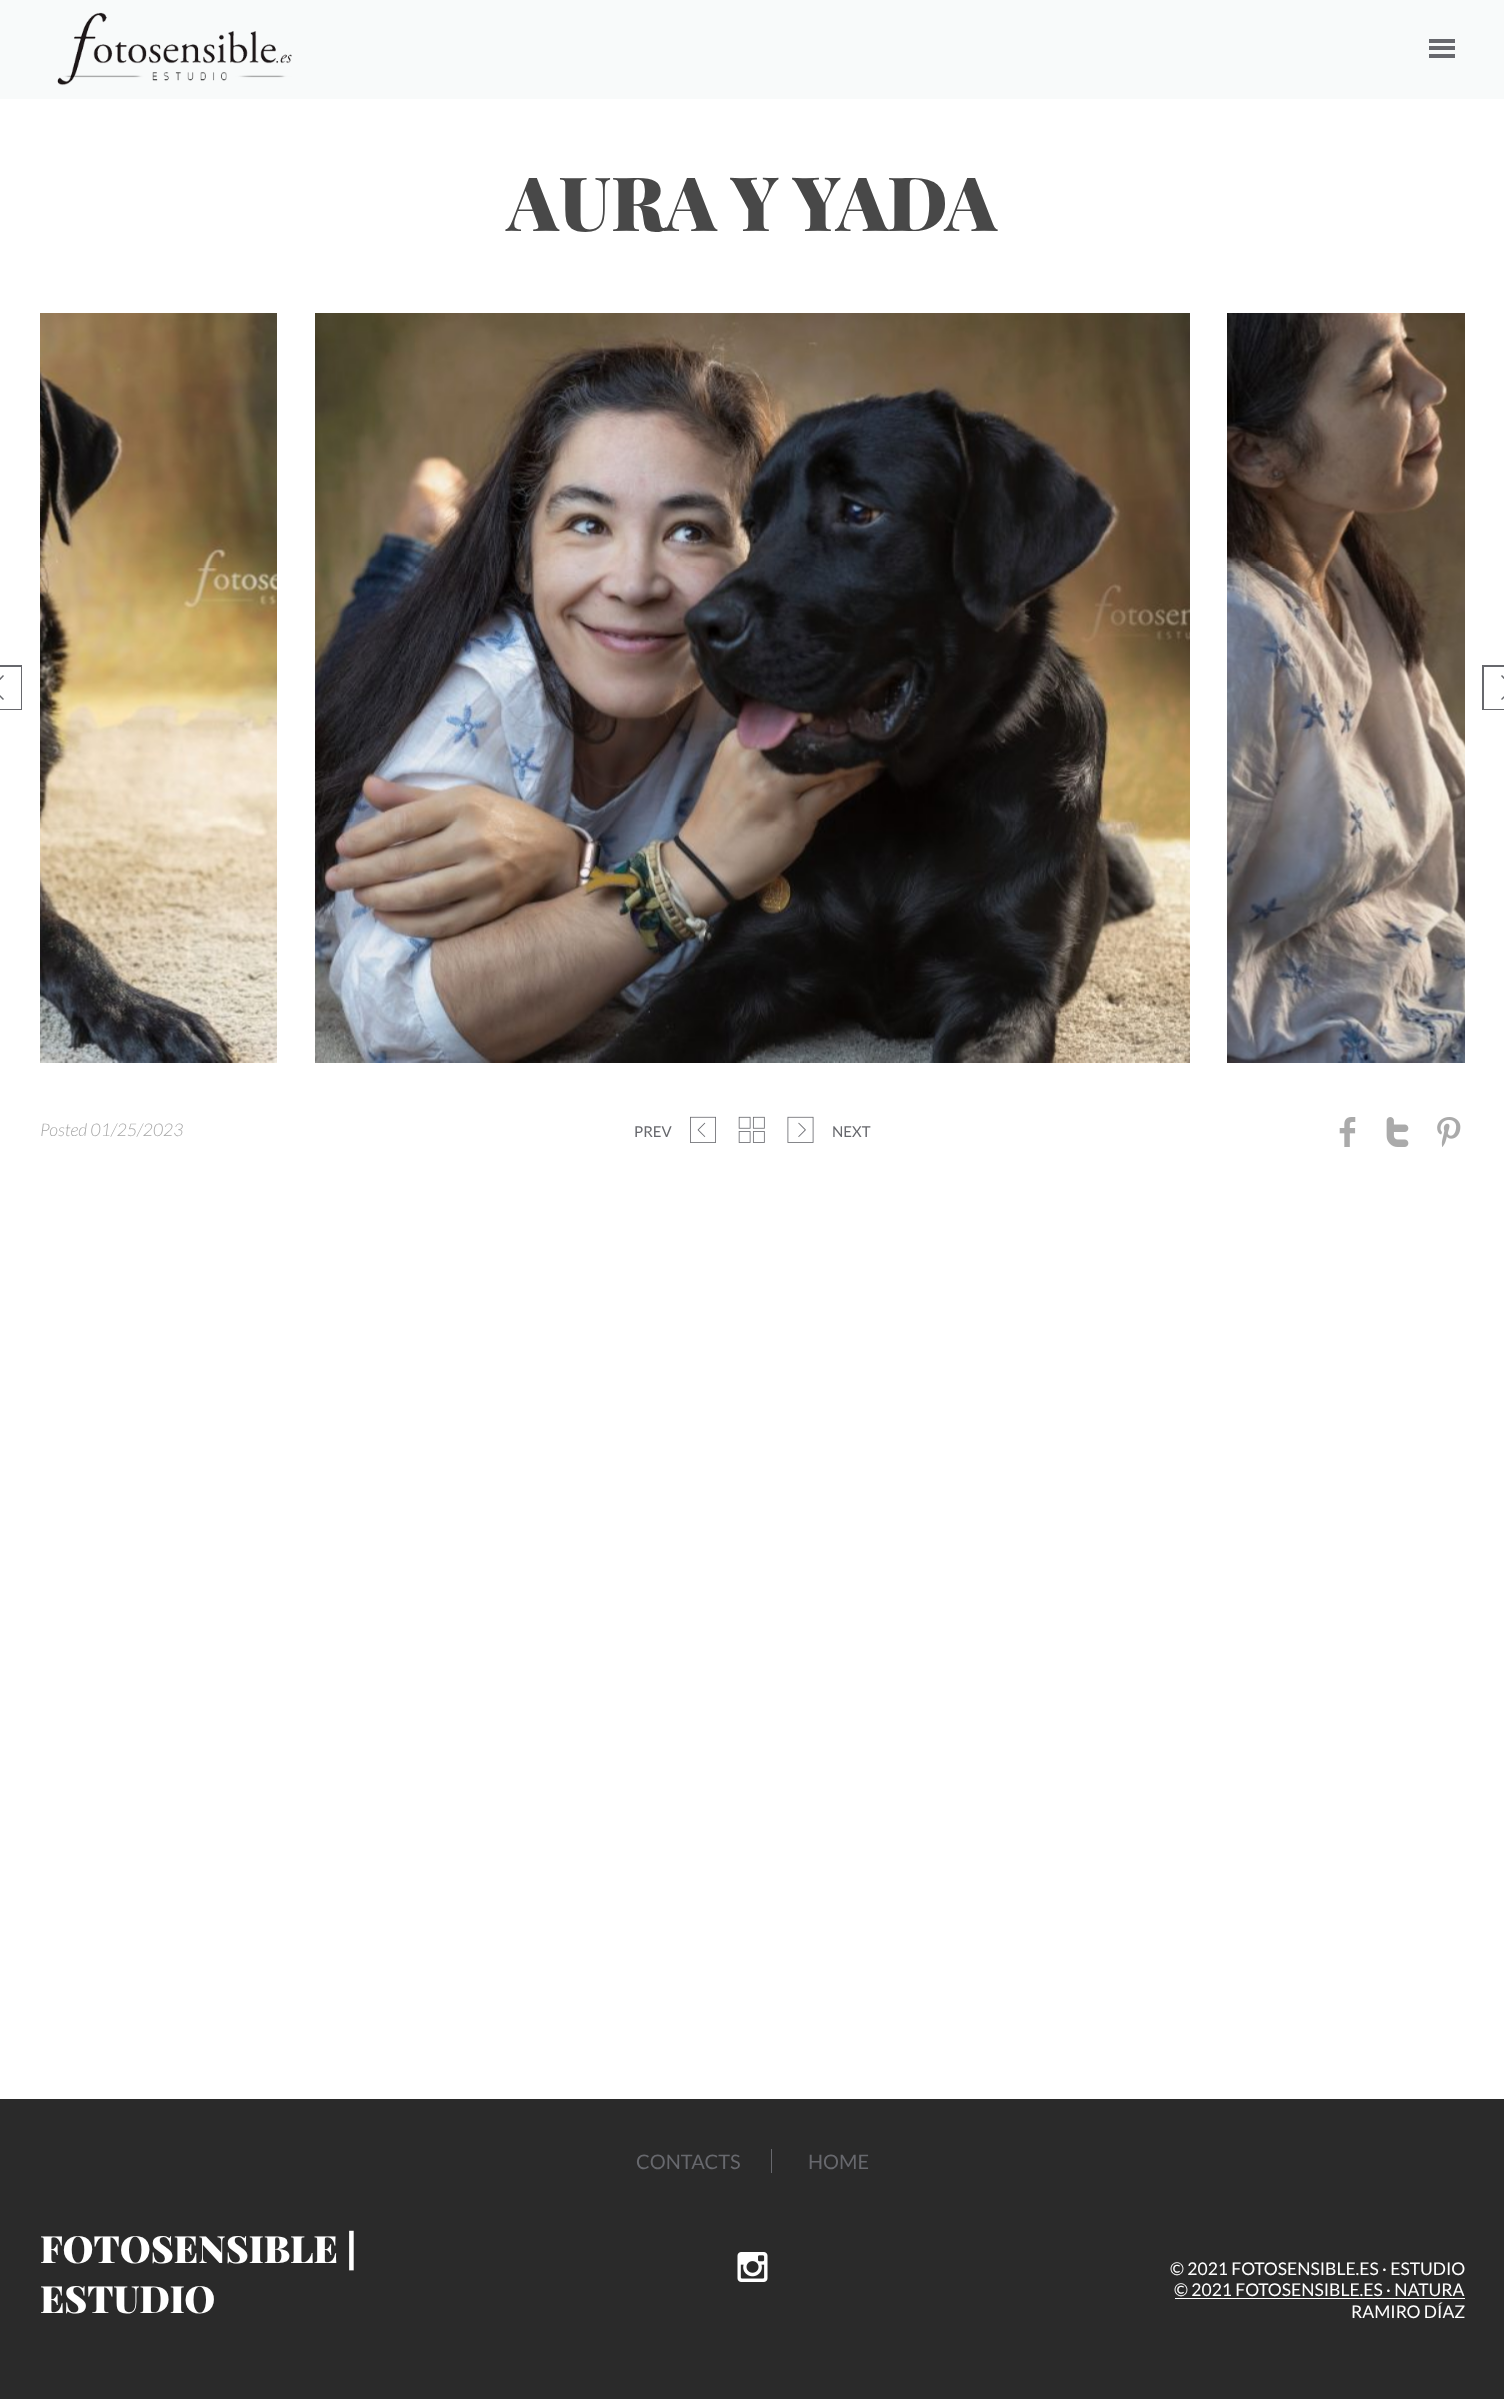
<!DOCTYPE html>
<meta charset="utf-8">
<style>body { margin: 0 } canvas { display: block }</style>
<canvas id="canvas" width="1504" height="2399"></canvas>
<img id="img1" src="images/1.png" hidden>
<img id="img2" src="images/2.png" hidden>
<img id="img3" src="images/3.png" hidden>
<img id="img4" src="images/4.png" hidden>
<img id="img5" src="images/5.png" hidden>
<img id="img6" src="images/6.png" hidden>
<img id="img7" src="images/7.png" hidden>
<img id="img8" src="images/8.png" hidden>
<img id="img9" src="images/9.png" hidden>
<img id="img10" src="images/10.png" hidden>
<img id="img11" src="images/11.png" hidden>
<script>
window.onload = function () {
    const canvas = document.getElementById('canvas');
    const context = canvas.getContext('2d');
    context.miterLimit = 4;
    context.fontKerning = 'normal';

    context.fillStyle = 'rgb(255, 255, 255)';
    context.fillRect(0, 0, 1504, 2399);
    context.fillStyle = 'rgb(248, 250, 250)';
    context.fillRect(0, 0, 1504, 99);
    context.drawImage(document.getElementById('img1'), 57, 12, 235, 74);
    context.fillStyle = 'rgb(103, 104, 109)';
    context.fillRect(1429, 39, 26, 4);
    context.fillRect(1429, 46, 26, 4);
    context.fillRect(1429, 54, 26, 4);
    context.drawImage(document.getElementById('img2'), 40, 313, 237, 750);
    context.drawImage(document.getElementById('img3'), 315, 313, 875, 750);
    context.drawImage(document.getElementById('img4'), 1227, 313, 238, 750);
    context.beginPath();
    context.moveTo(3, 675);
    context.lineTo(-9, 687);
    context.lineTo(-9, 688);
    context.lineTo(3, 700);
    context.lineTo(4, 699);
    context.lineTo(-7, 688);
    context.lineTo(4, 676);
    context.closePath();
    context.moveTo(-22, 710);
    context.lineTo(22, 710);
    context.lineTo(22, 665);
    context.lineTo(-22, 665);
    context.closePath();
    context.moveTo(-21, 667);
    context.lineTo(21, 667);
    context.lineTo(21, 709);
    context.lineTo(-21, 709);
    context.closePath();
    context.fill();
    context.beginPath();
    context.moveTo(1501, 676);
    context.lineTo(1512, 688);
    context.lineTo(1501, 699);
    context.lineTo(1502, 700);
    context.lineTo(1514, 688);
    context.lineTo(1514, 687);
    context.lineTo(1502, 675);
    context.closePath();
    context.moveTo(1482, 710);
    context.lineTo(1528, 710);
    context.lineTo(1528, 665);
    context.lineTo(1482, 665);
    context.closePath();
    context.moveTo(1484, 667);
    context.lineTo(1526, 667);
    context.lineTo(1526, 709);
    context.lineTo(1484, 709);
    context.closePath();
    context.fill();
    context.drawImage(document.getElementById('img5'), 690, 1116, 26, 27);
    context.drawImage(document.getElementById('img6'), 738, 1116, 27, 27);
    context.drawImage(document.getElementById('img7'), 787, 1116, 27, 27);
    context.drawImage(document.getElementById('img8'), 1339, 1117, 17, 30);
    context.drawImage(document.getElementById('img9'), 1386, 1117, 23, 30);
    context.drawImage(document.getElementById('img10'), 1437, 1117, 24, 30);
    context.fillStyle = 'rgb(42, 42, 42)';
    context.fillRect(0, 2099, 1504, 300);
    context.fillStyle = 'rgb(103, 104, 109)';
    context.fillRect(771, 2149, 1, 24);
    context.drawImage(document.getElementById('img11'), 737, 2252, 31, 30);
    context.fillStyle = 'rgb(255, 255, 255)';
    context.fillRect(1175, 2298, 290, 1);
    context.font = '900 75px Playfair Display SC';
    context.fillStyle = 'rgb(72, 72, 72)';
    context.fillText('AURA Y YADA', 507, 231);
    context.font = 'italic 300 17.5px Lato';
    context.fillStyle = 'rgb(166, 166, 166)';
    context.fillText('Posted 01/25/2023', 40, 1136);
    context.font = '15px Lato';
    context.fillStyle = 'rgb(103, 104, 109)';
    context.fillText('PREV', 634, 1137);
    context.fillText('NEXT', 832, 1137);
    context.font = '20px Lato';
    context.fillText('CONTACTS', 636, 2169);
    context.fillText('HOME', 808, 2169);
    context.font = '900 37.5px Playfair Display SC';
    context.fillStyle = 'rgb(255, 255, 255)';
    context.fillText('FOTOSENSIBLE |', 40, 2263);
    context.fillText('ESTUDIO', 40, 2313);
    context.font = '17.5px Lato';
    context.fillText('© 2021 FOTOSENSIBLE.ES · ESTUDIO', 1170, 2275);
    context.fillText('© 2021 FOTOSENSIBLE.ES · NATURA', 1174, 2296);
    context.fillText('RAMIRO DÍAZ', 1351, 2318);
};
</script>
